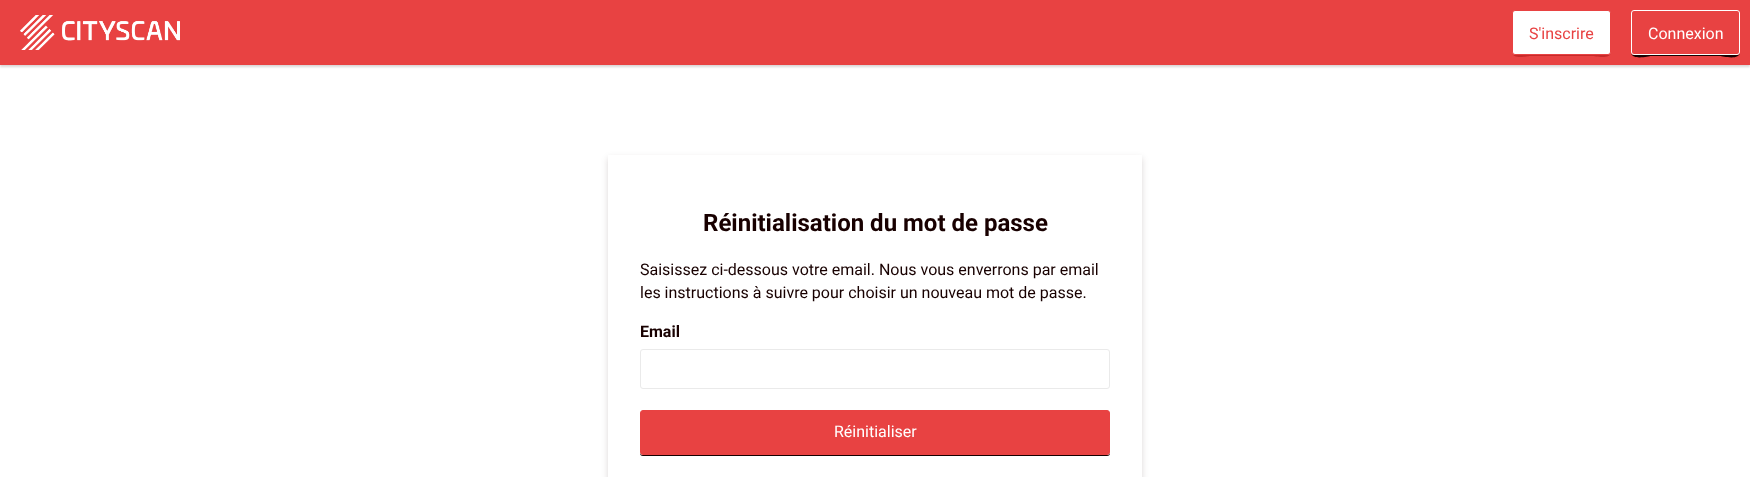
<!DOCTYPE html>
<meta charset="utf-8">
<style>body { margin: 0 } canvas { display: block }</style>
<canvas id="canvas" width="1750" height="477"></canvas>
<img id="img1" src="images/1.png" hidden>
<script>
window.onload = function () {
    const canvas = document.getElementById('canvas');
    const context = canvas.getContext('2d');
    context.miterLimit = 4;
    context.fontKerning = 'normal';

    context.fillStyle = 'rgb(255, 255, 255)';
    context.fillRect(0, 0, 1750, 477);
    context.fillStyle = 'rgba(24, 0, 0, 0.16)';
    context.filter = 'blur(1px)';
    context.beginPath();
    context.rect(0, 2, 1750, 65);
    context.fill();
    context.filter = 'none';
    context.fillStyle = 'rgb(232, 66, 66)';
    context.fillRect(0, 0, 1750, 65);
    context.drawImage(document.getElementById('img1'), 20, 15, 160, 35);
    context.fillStyle = 'rgb(199, 42, 42)';
    context.beginPath();
    context.moveTo(1512, 52);
    context.bezierCurveTo(1512, 60, 1528, 56, 1530, 56);
    context.lineTo(1592, 56);
    context.bezierCurveTo(1595, 56, 1611, 60, 1611, 52);
    context.bezierCurveTo(1611, 54, 1610, 55, 1608, 55);
    context.lineTo(1515, 55);
    context.bezierCurveTo(1513, 55, 1512, 54, 1512, 52);
    context.closePath();
    context.fill();
    context.fillStyle = 'rgb(255, 255, 255)';
    context.beginPath();
    context.roundRect(1512.5, 10.5, 98, 44, 2.5);
    context.fill();
    context.strokeStyle = 'rgb(232, 66, 66)';
    context.stroke();
    context.fillStyle = 'rgb(24, 0, 0)';
    context.beginPath();
    context.moveTo(1631, 52);
    context.bezierCurveTo(1631, 61, 1649, 56, 1651, 56);
    context.lineTo(1720, 56);
    context.bezierCurveTo(1722, 56, 1740, 61, 1740, 52);
    context.bezierCurveTo(1740, 54, 1739, 55, 1737, 55);
    context.lineTo(1634, 55);
    context.bezierCurveTo(1632, 55, 1631, 54, 1631, 52);
    context.closePath();
    context.fill();
    context.fillStyle = 'rgb(232, 66, 66)';
    context.beginPath();
    context.roundRect(1631.5, 10.5, 108, 44, 2.5);
    context.fill();
    context.strokeStyle = 'rgb(255, 255, 255)';
    context.stroke();
    context.save();
    context.beginPath();
    context.moveTo(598, 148);
    context.lineTo(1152, 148);
    context.lineTo(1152, 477);
    context.lineTo(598, 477);
    context.closePath();
    context.moveTo(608, 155);
    context.lineTo(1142, 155);
    context.lineTo(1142, 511);
    context.lineTo(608, 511);
    context.closePath();
    context.clip('evenodd');
    context.fillStyle = 'rgba(24, 0, 0, 0.16)';
    context.filter = 'blur(3px)';
    context.beginPath();
    context.rect(608, 158, 534, 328);
    context.fill();
    context.filter = 'none';
    context.restore();
    context.beginPath();
    context.roundRect(640.5, 349.5, 469, 39, 2.5);
    context.strokeStyle = 'rgb(234, 234, 234)';
    context.stroke();
    context.fillStyle = 'rgb(24, 0, 0)';
    context.beginPath();
    context.moveTo(640, 452);
    context.lineTo(640, 453);
    context.bezierCurveTo(640, 455, 641, 456, 643, 456);
    context.lineTo(1107, 456);
    context.bezierCurveTo(1109, 456, 1110, 455, 1110, 453);
    context.lineTo(1110, 452);
    context.bezierCurveTo(1110, 454, 1109, 455, 1107, 455);
    context.lineTo(643, 455);
    context.bezierCurveTo(641, 455, 640, 454, 640, 452);
    context.closePath();
    context.fill();
    context.fillStyle = 'rgb(232, 66, 66)';
    context.beginPath();
    context.roundRect(640.5, 410.5, 469, 44, 2.5);
    context.fill();
    context.strokeStyle = 'rgb(232, 66, 66)';
    context.stroke();
    context.font = '16px Roboto';
    context.fillText('S\'inscrire', 1529, 39);
    context.fillStyle = 'rgb(255, 255, 255)';
    context.fillText('Connexion', 1648, 39);
    context.font = 'bold 24px Roboto';
    context.fillStyle = 'rgb(24, 0, 0)';
    context.fillText('Réinitialisation du mot de passe', 703, 231);
    context.font = '16px Roboto';
    context.fillText('Saisissez ci-dessous votre email. Nous vous enverrons par email', 640, 275);
    context.fillText('les instructions à suivre pour choisir un nouveau mot de passe.', 640, 298);
    context.font = 'bold 16px Roboto';
    context.fillText('Email', 640, 337);
    context.font = '16px Roboto';
    context.fillStyle = 'rgb(255, 255, 255)';
    context.fillText('Réinitialiser', 834, 437);
};
</script>
